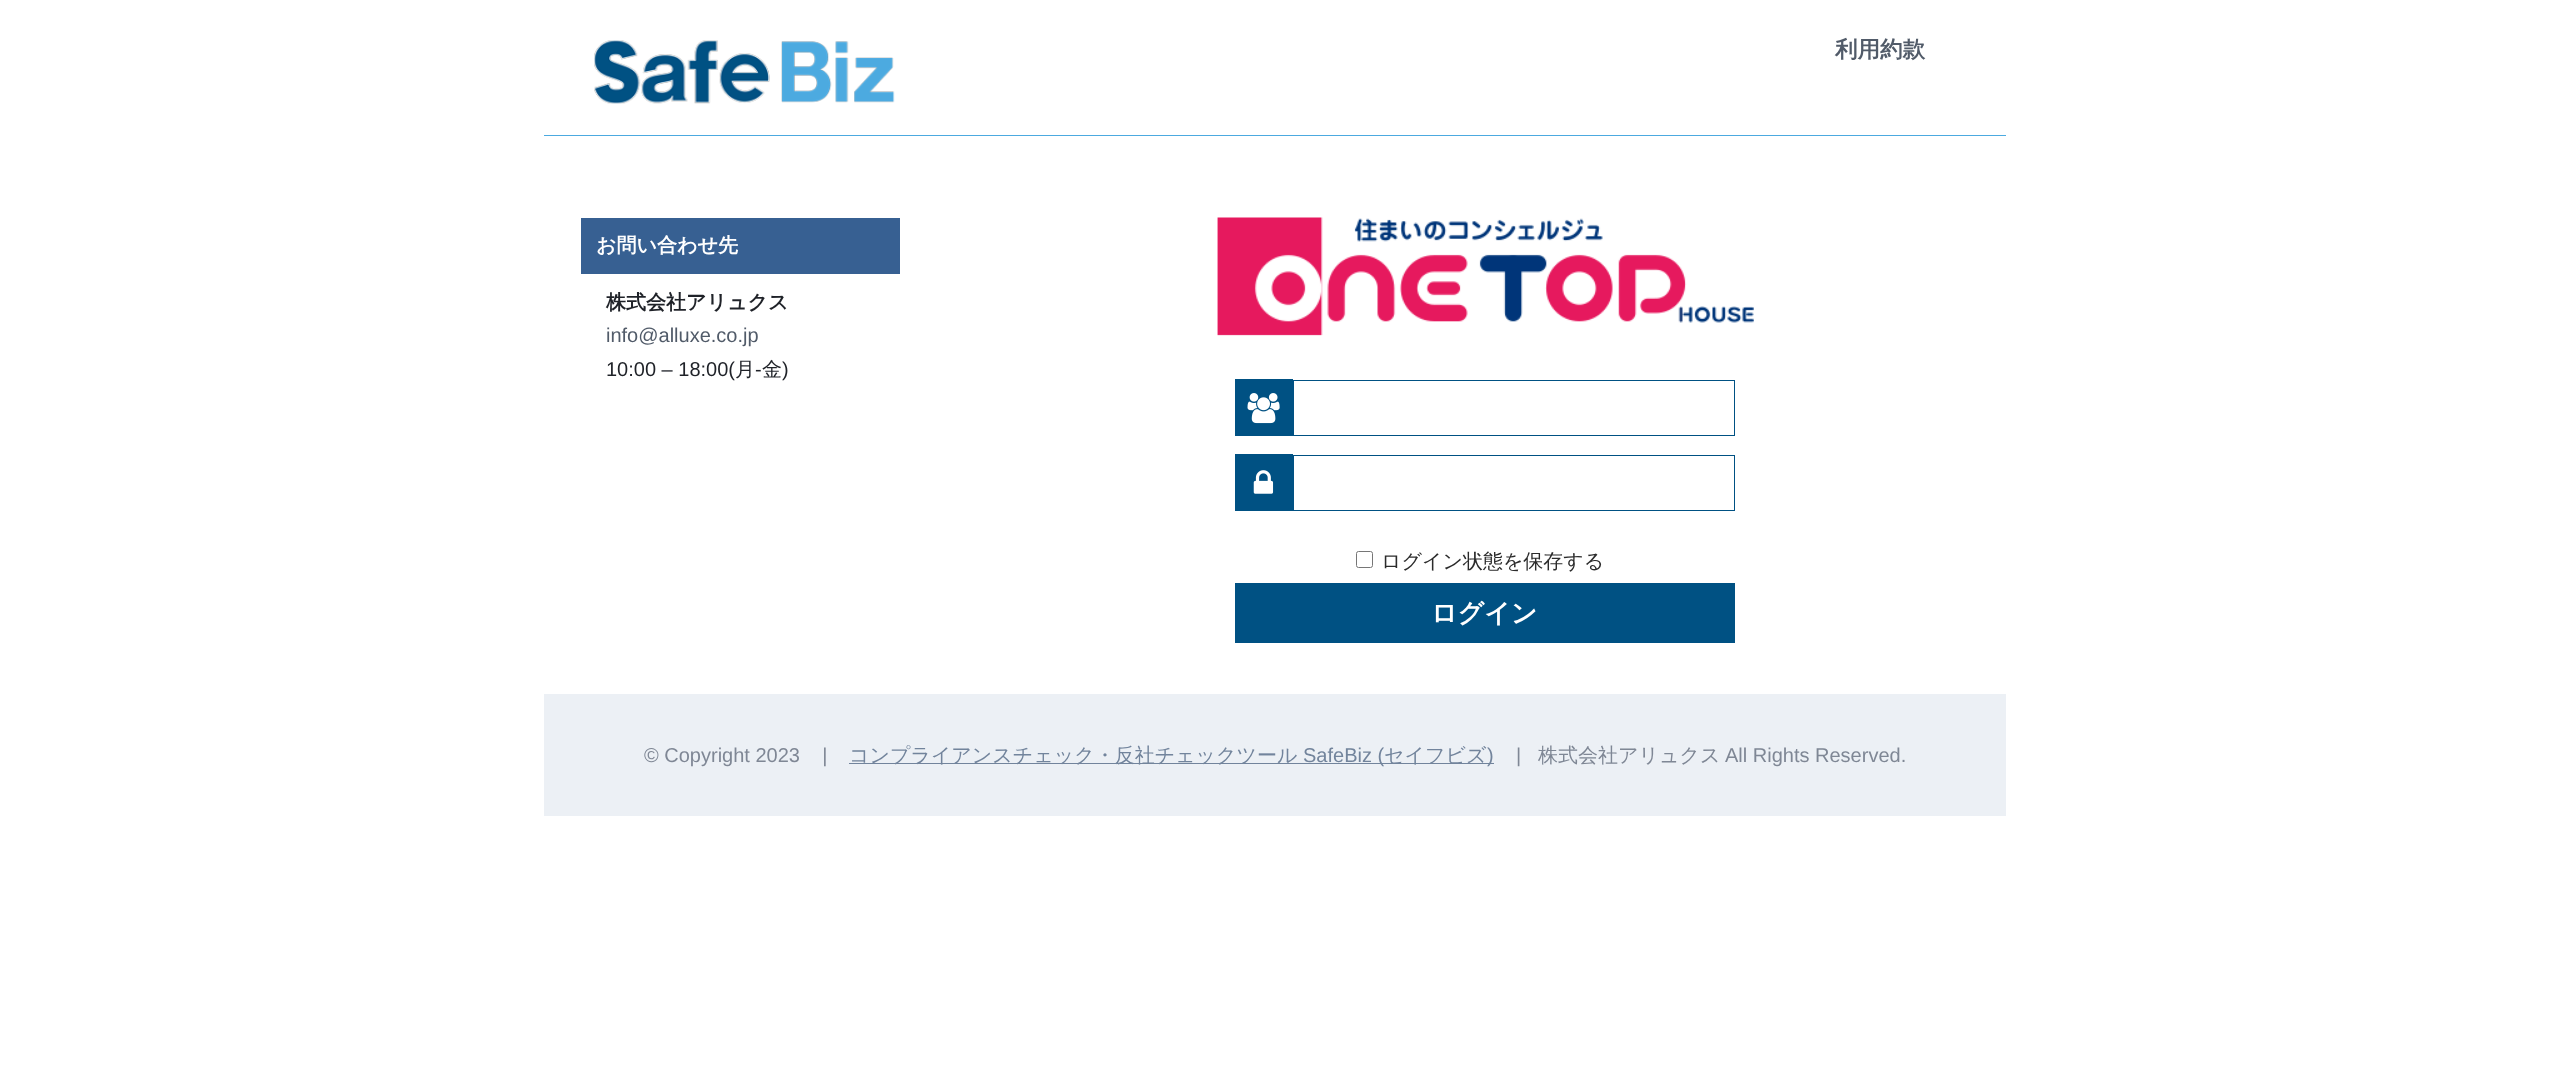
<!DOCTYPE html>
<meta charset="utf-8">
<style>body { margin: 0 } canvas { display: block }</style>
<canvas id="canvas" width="2550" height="1081"></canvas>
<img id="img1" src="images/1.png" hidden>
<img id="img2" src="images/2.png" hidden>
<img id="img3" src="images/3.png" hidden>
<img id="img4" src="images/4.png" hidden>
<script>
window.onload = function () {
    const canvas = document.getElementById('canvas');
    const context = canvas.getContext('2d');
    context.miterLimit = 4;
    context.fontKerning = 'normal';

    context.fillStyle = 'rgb(255, 255, 255)';
    context.fillRect(0, 0, 2550, 1081);
    context.fillStyle = 'rgb(76, 170, 224)';
    context.fillRect(544, 135, 1462, 1);
    context.drawImage(document.getElementById('img1'), 594, 40, 301, 64);
    context.fillStyle = 'rgb(55, 96, 146)';
    context.fillRect(581, 218, 319, 56);
    context.drawImage(document.getElementById('img2'), 1217, 217, 537, 119);
    context.fillStyle = 'rgb(0, 81, 131)';
    context.fillRect(1235, 379, 58, 57);
    context.drawImage(document.getElementById('img3'), 1247, 393, 33, 31);
    context.strokeStyle = 'rgb(0, 81, 131)';
    context.strokeRect(1293.5, 380.5, 441, 55);
    context.fillRect(1235, 454, 58, 57);
    context.drawImage(document.getElementById('img4'), 1253, 470, 21, 24);
    context.strokeRect(1293.5, 455.5, 441, 55);
    context.beginPath();
    context.roundRect(1356.5, 551.5, 16, 16, 2);
    context.strokeStyle = 'rgb(118, 118, 118)';
    context.stroke();
    context.fillRect(1235, 583, 500, 60);
    context.fillStyle = 'rgb(236, 240, 245)';
    context.fillRect(544, 694, 1462, 122);
    context.fillStyle = 'rgb(114, 132, 156)';
    context.fillRect(849, 763, 645, 1);
    context.font = 'bold 22.5px WenQuanYi Zen Hei';
    context.fillStyle = 'rgb(81, 91, 105)';
    context.fillText('利用約款', 1835, 57);
    context.font = 'bold 20px WenQuanYi Zen Hei';
    context.fillStyle = 'rgb(255, 255, 255)';
    context.fillText('お問い合わせ先', 596, 252);
    context.fillStyle = 'rgb(31, 34, 40)';
    context.fillText('株式会社アリュクス', 606, 309);
    context.font = '20px Liberation Sans';
    context.fillStyle = 'rgb(81, 91, 105)';
    context.fillText('info@alluxe.co.jp', 606, 342);
    context.fillStyle = 'rgb(31, 34, 40)';
    context.fillText('10:00 – 18:00(', 606, 376);
    context.font = '500 20px WenQuanYi Zen Hei';
    context.fillText('月', 735, 376);
    context.font = '20px Liberation Sans';
    context.fillText('-', 755, 376);
    context.font = '500 20px WenQuanYi Zen Hei';
    context.fillText('金', 762, 376);
    context.font = '20px Liberation Sans';
    context.fillText(')', 782, 376);
    context.font = '500 20px WenQuanYi Zen Hei';
    context.fillStyle = 'rgb(43, 43, 43)';
    context.fillText('ログイン状態を保存する', 1381, 568);
    context.font = 'bold 26px WenQuanYi Zen Hei';
    context.fillStyle = 'rgb(255, 255, 255)';
    context.fillText('ログイン', 1431, 622);
    context.font = '20px Liberation Sans';
    context.fillStyle = 'rgb(127, 135, 149)';
    context.fillText('© Copyright 2023    |', 644, 762);
    context.font = '500 20px WenQuanYi Zen Hei';
    context.fillStyle = 'rgb(114, 132, 156)';
    context.fillText('コンプライアンスチェック・反社チェックツール', 849, 762);
    context.font = '20px Liberation Sans';
    context.fillText('SafeBiz (', 1303, 762);
    context.font = '500 20px WenQuanYi Zen Hei';
    context.fillText('セイフビズ', 1384, 762);
    context.font = '20px Liberation Sans';
    context.fillText(')', 1487, 762);
    context.fillStyle = 'rgb(127, 135, 149)';
    context.fillText('|', 1516, 762);
    context.font = '500 20px WenQuanYi Zen Hei';
    context.fillText('株式会社アリュクス', 1538, 762);
    context.font = '20px Liberation Sans';
    context.fillText('All Rights Reserved.', 1725, 762);
};
</script>
